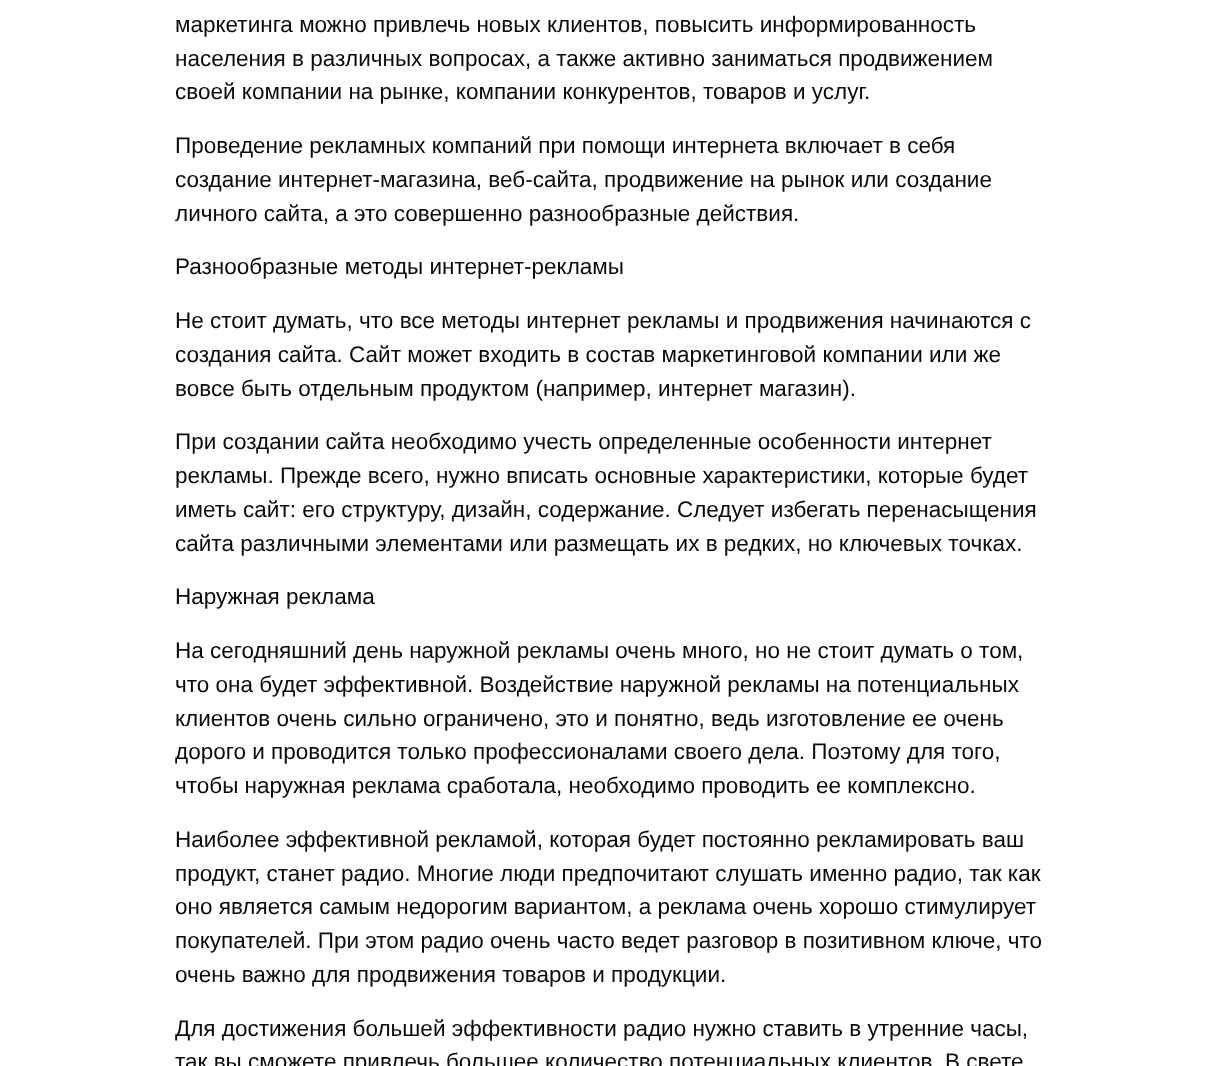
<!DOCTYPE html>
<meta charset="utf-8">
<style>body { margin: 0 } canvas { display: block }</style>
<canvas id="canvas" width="1219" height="1066"></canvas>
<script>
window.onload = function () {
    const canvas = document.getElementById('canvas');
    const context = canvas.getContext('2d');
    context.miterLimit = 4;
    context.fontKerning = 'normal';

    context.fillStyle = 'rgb(255, 255, 255)';
    context.fillRect(0, 0, 1219, 1066);
    context.font = '22.5px Liberation Sans';
    context.fillStyle = 'rgb(10, 10, 10)';
    context.fillText('маркетинга можно привлечь новых клиентов, повысить информированность', 175, 32);
    context.fillText('населения в различных вопросах, а также активно заниматься продвижением', 175, 66);
    context.fillText('своей компании на рынке, компании конкурентов, товаров и услуг.', 175, 99);
    context.fillText('Проведение рекламных компаний при помощи интернета включает в себя', 175, 153);
    context.fillText('создание интернет-магазина, веб-сайта, продвижение на рынок или создание', 175, 187);
    context.fillText('личного сайта, а это совершенно разнообразные действия.', 175, 221);
    context.fillText('Разнообразные методы интернет-рекламы', 175, 274);
    context.fillText('Не стоит думать, что все методы интернет рекламы и продвижения начинаются с', 175, 328);
    context.fillText('создания сайта. Сайт может входить в состав маркетинговой компании или же', 175, 362);
    context.fillText('вовсе быть отдельным продуктом (например, интернет магазин).', 175, 396);
    context.fillText('При создании сайта необходимо учесть определенные особенности интернет', 175, 449);
    context.fillText('рекламы. Прежде всего, нужно вписать основные характеристики, которые будет', 175, 483);
    context.fillText('иметь сайт: его структуру, дизайн, содержание. Следует избегать перенасыщения', 175, 517);
    context.fillText('сайта различными элементами или размещать их в редких, но ключевых точках.', 175, 551);
    context.fillText('Наружная реклама', 175, 604);
    context.fillText('На сегодняшний день наружной рекламы очень много, но не стоит думать о том,', 175, 658);
    context.fillText('что она будет эффективной. Воздействие наружной рекламы на потенциальных', 175, 692);
    context.fillText('клиентов очень сильно ограничено, это и понятно, ведь изготовление ее очень', 175, 726);
    context.fillText('дорого и проводится только профессионалами своего дела. Поэтому для того,', 175, 759);
    context.fillText('чтобы наружная реклама сработала, необходимо проводить ее комплексно.', 175, 793);
    context.fillText('Наиболее эффективной рекламой, которая будет постоянно рекламировать ваш', 175, 847);
    context.fillText('продукт, станет радио. Многие люди предпочитают слушать именно радио, так как', 175, 881);
    context.fillText('оно является самым недорогим вариантом, а реклама очень хорошо стимулирует', 175, 914);
    context.fillText('покупателей. При этом радио очень часто ведет разговор в позитивном ключе, что', 175, 948);
    context.fillText('очень важно для продвижения товаров и продукции.', 175, 982);
    context.fillText('Для достижения большей эффективности радио нужно ставить в утренние часы,', 175, 1036);
    context.fillText('так вы сможете привлечь большее количество потенциальных клиентов. В свете', 175, 1069);
};
</script>
